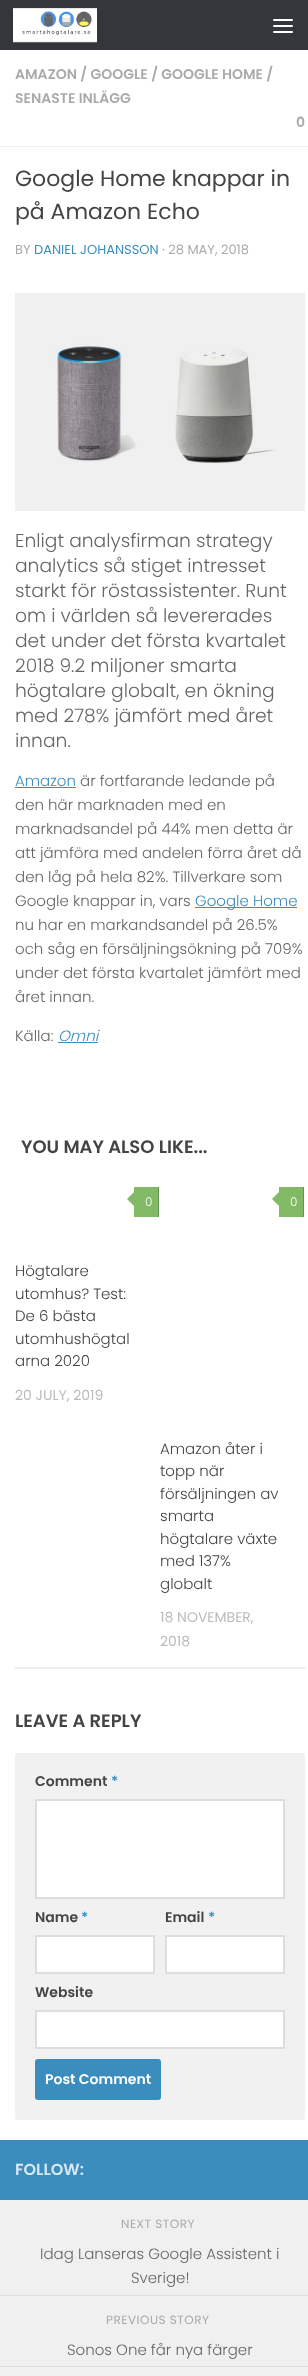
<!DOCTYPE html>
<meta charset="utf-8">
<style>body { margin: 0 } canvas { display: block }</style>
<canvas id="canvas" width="308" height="2376"></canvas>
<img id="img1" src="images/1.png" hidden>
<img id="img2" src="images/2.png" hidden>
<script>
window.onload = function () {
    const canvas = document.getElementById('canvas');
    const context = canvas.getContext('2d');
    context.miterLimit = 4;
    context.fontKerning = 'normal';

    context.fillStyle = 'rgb(255, 255, 255)';
    context.fillRect(0, 0, 308, 2376);
    context.fillStyle = 'rgb(51, 54, 59)';
    context.fillRect(0, 0, 308, 50);
    context.drawImage(document.getElementById('img1'), 13, 8, 84, 35);
    context.fillStyle = 'rgb(255, 255, 255)';
    context.beginPath();
    context.roundRect(273, 19, 20, 2, 1);
    context.fill();
    context.beginPath();
    context.roundRect(273, 25, 20, 2, 1);
    context.fill();
    context.beginPath();
    context.roundRect(273, 31, 20, 2, 1);
    context.fill();
    context.fillStyle = 'rgb(238, 238, 238)';
    context.fillRect(0, 146, 308, 1);
    context.drawImage(document.getElementById('img2'), 15, 293, 290, 218);
    context.fillStyle = 'rgb(59, 141, 189)';
    context.fillRect(15, 787, 61, 1);
    context.fillRect(195, 907, 102, 1);
    context.fillRect(58, 1042, 40, 1);
    context.fillStyle = 'rgb(238, 238, 238)';
    context.fillRect(15, 1667, 290, 2);
    context.fillStyle = 'rgb(130, 185, 101)';
    context.fillRect(134, 1187, 24, 30);
    context.fillStyle = 'rgb(104, 148, 81)';
    context.fillRect(158, 1187, 1, 30);
    context.fillStyle = 'rgb(130, 185, 101)';
    context.beginPath();
    context.moveTo(136, 1190);
    context.lineTo(136, 1208);
    context.lineTo(127, 1199);
    context.closePath();
    context.fill();
    context.fillRect(279, 1187, 24, 30);
    context.fillStyle = 'rgb(104, 148, 81)';
    context.fillRect(303, 1187, 1, 30);
    context.fillStyle = 'rgb(130, 185, 101)';
    context.beginPath();
    context.moveTo(281, 1190);
    context.lineTo(281, 1208);
    context.lineTo(272, 1199);
    context.closePath();
    context.fill();
    context.fillStyle = 'rgb(241, 241, 241)';
    context.beginPath();
    context.roundRect(15, 1753, 290, 367, 2);
    context.fill();
    context.fillStyle = 'rgb(255, 255, 255)';
    context.beginPath();
    context.rect(36, 1800, 248, 98);
    context.fill();
    context.strokeStyle = 'rgb(221, 221, 221)';
    context.lineWidth = 2;
    context.stroke();
    context.beginPath();
    context.rect(36, 1936, 118, 37);
    context.fill();
    context.stroke();
    context.beginPath();
    context.rect(166, 1936, 118, 37);
    context.fill();
    context.stroke();
    context.beginPath();
    context.rect(36, 2011, 248, 37);
    context.fill();
    context.stroke();
    context.fillStyle = 'rgb(59, 141, 189)';
    context.beginPath();
    context.roundRect(35, 2059, 126, 41, 3);
    context.fill();
    context.fillStyle = 'rgb(240, 240, 240)';
    context.fillRect(0, 2200, 308, 176);
    context.fillStyle = 'rgb(59, 141, 189)';
    context.fillRect(0, 2140, 308, 60);
    context.fillStyle = 'rgb(221, 221, 221)';
    context.fillRect(0, 2295, 308, 1);
    context.fillRect(0, 2366, 308, 1);
    context.font = '600 14px Poppins';
    context.fillStyle = 'rgb(170, 170, 170)';
    context.fillText('AMAZON / GOOGLE / GOOGLE HOME /', 15, 79);
    context.fillText('SENASTE INLÄGG', 15, 103);
    context.fillText('0', 296, 127);
    context.font = '22px Poppins';
    context.fillStyle = 'rgb(68, 68, 68)';
    context.fillText('Google Home knappar in', 15, 186);
    context.fillText('på Amazon Echo', 15, 219);
    context.font = '13px Poppins';
    context.fillStyle = 'rgb(170, 170, 170)';
    context.fillText('BY', 15, 254);
    context.fillStyle = 'rgb(59, 141, 189)';
    context.fillText('DANIEL JOHANSSON', 34, 254);
    context.fillStyle = 'rgb(170, 170, 170)';
    context.fillText('· 28 MAY, 2018', 162, 254);
    context.font = '300 18.7px Poppins';
    context.fillStyle = 'rgb(102, 102, 102)';
    context.fillText('Enligt analysfirman strategy', 15, 547);
    context.fillText('analytics så stiget intresset', 15, 572);
    context.fillText('starkt för röstassistenter. Runt', 15, 597);
    context.fillText('om i världen så levererades', 15, 622);
    context.fillText('det under det första kvartalet', 15, 647);
    context.fillText('2018 9.2 miljoner smarta', 15, 672);
    context.fillText('högtalare globalt, en ökning', 15, 697);
    context.fillText('med 278% jämfört med året', 15, 722);
    context.fillText('innan.', 15, 747);
    context.font = '300 15px Poppins';
    context.fillStyle = 'rgb(59, 141, 189)';
    context.fillText('Amazon', 15, 786);
    context.fillStyle = 'rgb(102, 102, 102)';
    context.fillText('är fortfarande ledande på', 80, 786);
    context.fillText('den här marknaden med en', 15, 810);
    context.fillText('marknadsandel på 44% men detta är', 15, 834);
    context.fillText('att jämföra med andelen förra året då', 15, 858);
    context.fillText('den låg på hela 82%. Tillverkare som', 15, 882);
    context.fillText('Google knappar in, vars', 15, 906);
    context.fillStyle = 'rgb(59, 141, 189)';
    context.fillText('Google Home', 195, 906);
    context.fillStyle = 'rgb(102, 102, 102)';
    context.fillText('nu har en markandsandel på 26.5%', 15, 930);
    context.fillText('och såg en försäljningsökning på 709%', 15, 954);
    context.fillText('under det första kvartalet jämfört med', 15, 978);
    context.fillText('året innan.', 15, 1002);
    context.fillText('Källa:', 15, 1041);
    context.font = 'italic 300 15px Poppins';
    context.fillStyle = 'rgb(59, 141, 189)';
    context.fillText('Omni', 58, 1041);
    context.font = '600 18px Poppins';
    context.fillStyle = 'rgb(68, 68, 68)';
    context.fillText('YOU MAY ALSO LIKE...', 21, 1153);
    context.font = '300 12px Poppins';
    context.fillStyle = 'rgb(255, 255, 255)';
    context.fillText('0', 145, 1206);
    context.font = '300 15px Poppins';
    context.fillStyle = 'rgb(68, 68, 68)';
    context.fillText('Högtalare', 15, 1276);
    context.fillText('utomhus? Test:', 15, 1299);
    context.fillText('De 6 bästa', 15, 1321);
    context.fillText('utomhushögtal', 15, 1344);
    context.fillText('arna 2020', 15, 1366);
    context.font = '14px Poppins';
    context.fillStyle = 'rgb(187, 187, 187)';
    context.fillText('20 JULY, 2019', 15, 1400);
    context.font = '300 12px Poppins';
    context.fillStyle = 'rgb(255, 255, 255)';
    context.fillText('0', 290, 1206);
    context.font = '300 15px Poppins';
    context.fillStyle = 'rgb(68, 68, 68)';
    context.fillText('Amazon åter i', 160, 1454);
    context.fillText('topp när', 160, 1476);
    context.fillText('försäljningen av', 160, 1499);
    context.fillText('smarta', 160, 1521);
    context.fillText('högtalare växte', 160, 1544);
    context.fillText('med 137%', 160, 1566);
    context.fillText('globalt', 160, 1589);
    context.font = '14px Poppins';
    context.fillStyle = 'rgb(187, 187, 187)';
    context.fillText('18 NOVEMBER,', 160, 1622);
    context.fillText('2018', 160, 1646);
    context.font = '600 18px Poppins';
    context.fillStyle = 'rgb(68, 68, 68)';
    context.fillText('LEAVE A REPLY', 15, 1727);
    context.font = '600 14px Poppins';
    context.fillText('Comment', 35, 1786);
    context.fillStyle = 'rgb(59, 141, 189)';
    context.fillText('*', 111, 1786);
    context.fillStyle = 'rgb(68, 68, 68)';
    context.fillText('Name', 35, 1922);
    context.fillStyle = 'rgb(59, 141, 189)';
    context.fillText('*', 81, 1922);
    context.fillStyle = 'rgb(68, 68, 68)';
    context.fillText('Email', 165, 1922);
    context.fillStyle = 'rgb(59, 141, 189)';
    context.fillText('*', 208, 1922);
    context.fillStyle = 'rgb(68, 68, 68)';
    context.fillText('Website', 35, 1997);
    context.fillStyle = 'rgb(255, 255, 255)';
    context.fillText('Post Comment', 45, 2084);
    context.font = '600 16px Poppins';
    context.fillStyle = 'rgb(216, 232, 242)';
    context.fillText('FOLLOW:', 15, 2175);
    context.letterSpacing = '0.5px';
    context.font = '12px Poppins';
    context.fillStyle = 'rgb(170, 170, 170)';
    context.fillText('NEXT STORY', 121, 2228);
    context.letterSpacing = '0px';
    context.font = '300 15px Poppins';
    context.fillStyle = 'rgb(102, 102, 102)';
    context.fillText('Idag Lanseras Google Assistent i', 40, 2259);
    context.fillText('Sverige!', 131, 2283);
    context.letterSpacing = '0.5px';
    context.font = '12px Poppins';
    context.fillStyle = 'rgb(170, 170, 170)';
    context.fillText('PREVIOUS STORY', 106, 2324);
    context.letterSpacing = '0px';
    context.font = '300 15px Poppins';
    context.fillStyle = 'rgb(102, 102, 102)';
    context.fillText('Sonos One får nya färger', 67, 2355);
};
</script>
